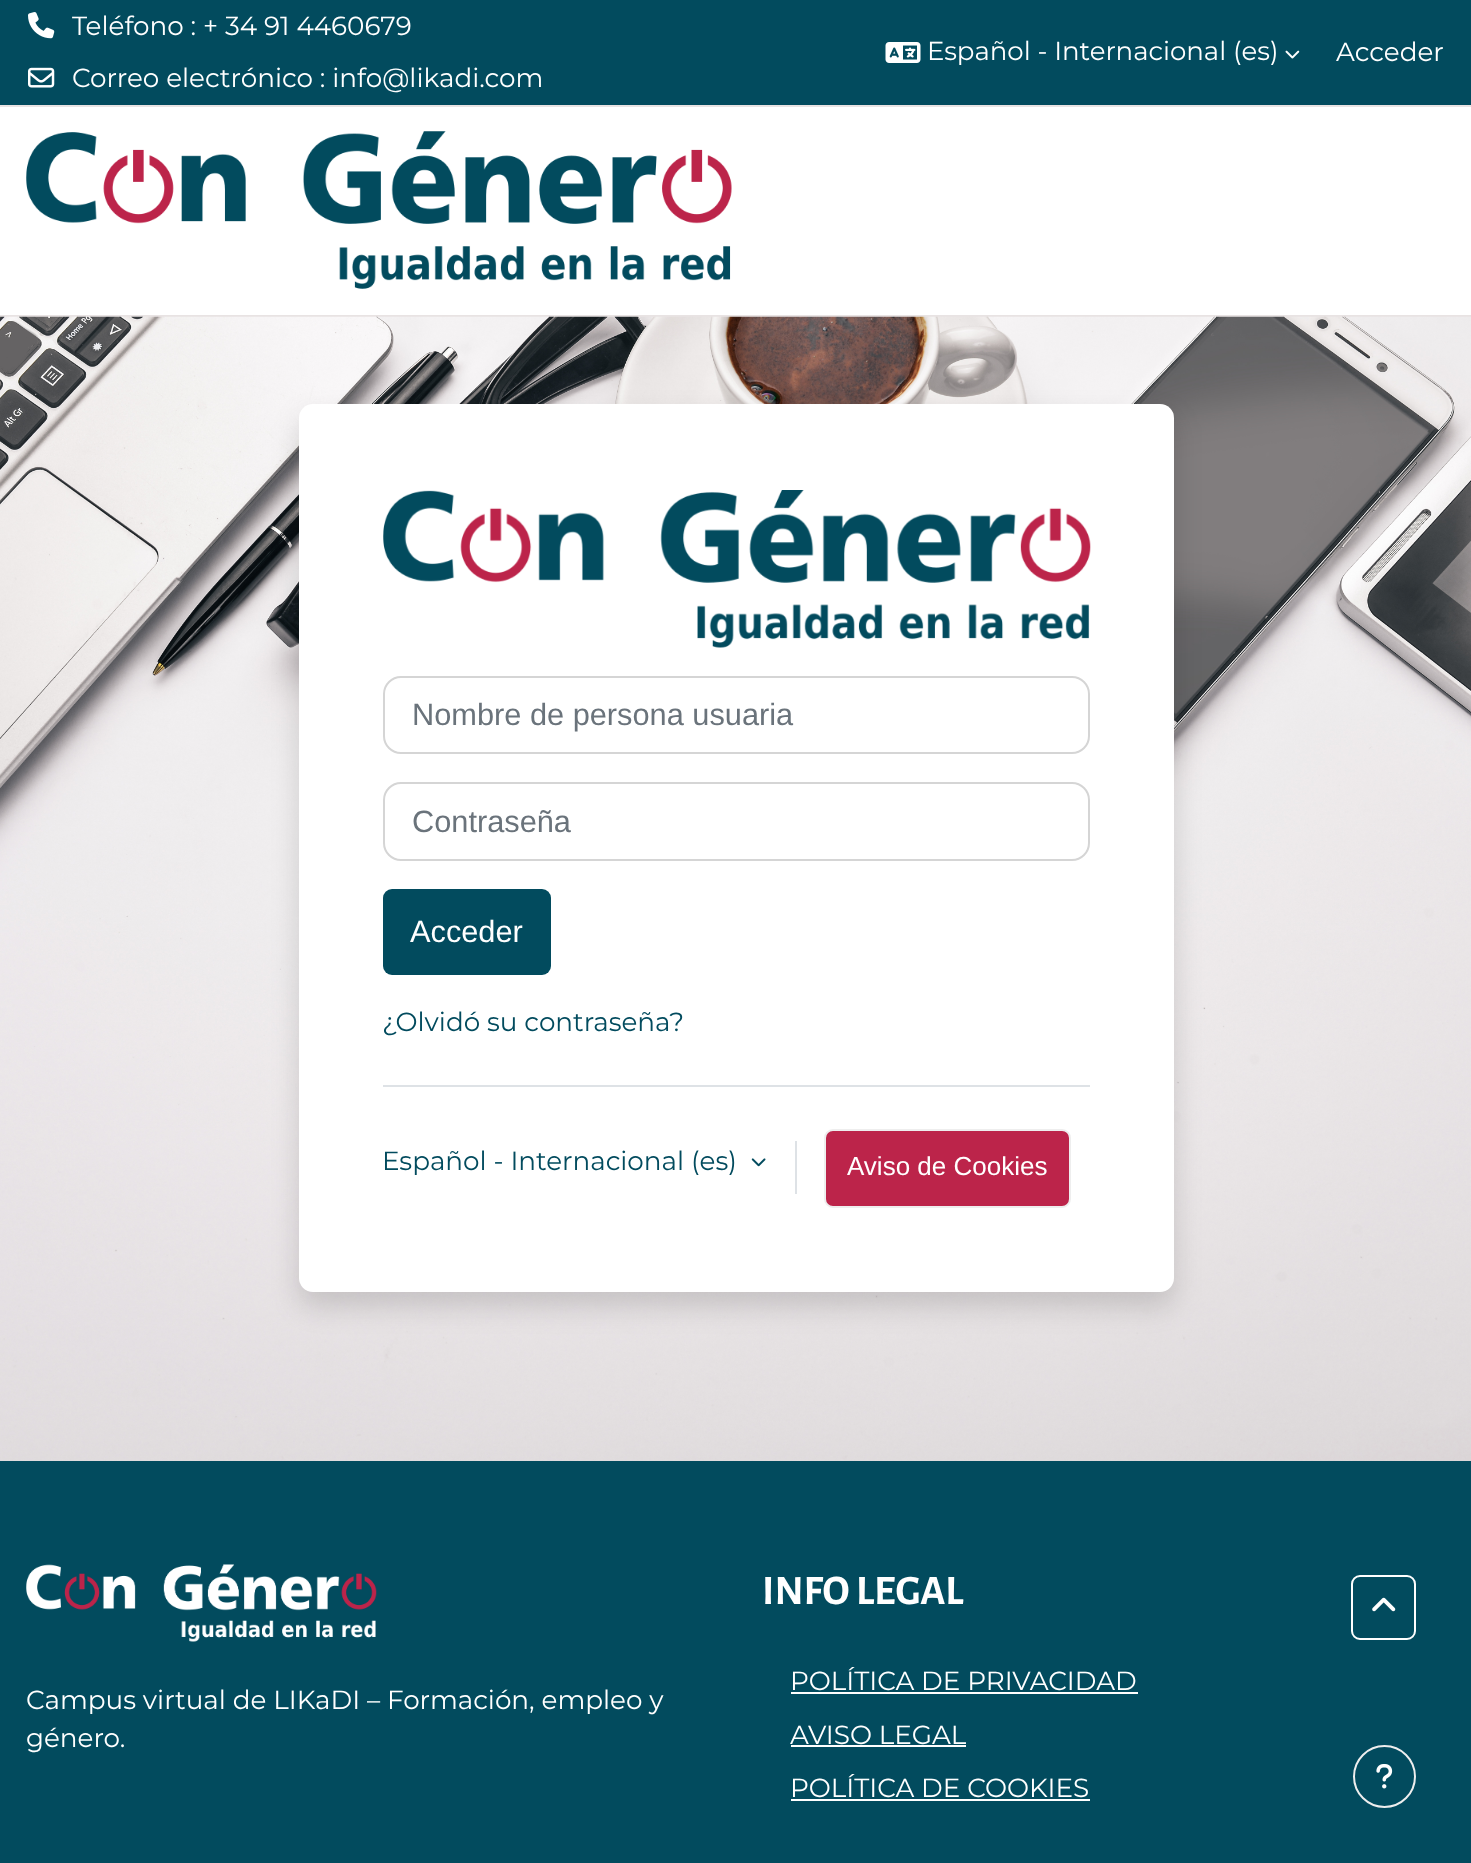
<!DOCTYPE html>
<meta charset="utf-8">
<style>body { margin: 0 } canvas { display: block }</style>
<canvas id="canvas" width="1471" height="1863"></canvas>
<img id="img1" src="images/1.png" hidden>
<img id="img2" src="images/2.png" hidden>
<img id="img3" src="images/3.png" hidden>
<img id="img4" src="images/4.png" hidden>
<img id="img5" src="images/5.png" hidden>
<img id="img6" src="images/6.png" hidden>
<img id="img7" src="images/7.png" hidden>
<img id="img8" src="images/8.png" hidden>
<img id="img9" src="images/9.png" hidden>
<img id="img10" src="images/10.png" hidden>
<img id="img11" src="images/11.png" hidden>
<script>
window.onload = function () {
    const canvas = document.getElementById('canvas');
    const context = canvas.getContext('2d');
    context.miterLimit = 4;
    context.fontKerning = 'normal';

    context.fillStyle = 'rgb(255, 255, 255)';
    context.fillRect(0, 0, 1471, 1863);
    context.fillStyle = 'rgb(2, 75, 94)';
    context.fillRect(0, 0, 1471, 105);
    context.fillStyle = 'rgb(232, 227, 227)';
    context.fillRect(0, 105, 1471, 2);
    context.drawImage(document.getElementById('img1'), 28, 12, 27, 27);
    context.drawImage(document.getElementById('img2'), 28, 67, 27, 21);
    context.drawImage(document.getElementById('img3'), 885, 42, 36, 21);
    context.drawImage(document.getElementById('img4'), 1285, 50, 15, 9);
    context.fillRect(0, 315, 1471, 2);
    context.drawImage(document.getElementById('img5'), 26, 131, 706, 158);
    context.drawImage(document.getElementById('img6'), 0, 316, 1471, 1145);
    context.fillStyle = 'rgba(0, 0, 0, 0.15)';
    context.filter = 'blur(14px)';
    context.beginPath();
    context.roundRect(299, 418, 875, 888, 14);
    context.fill();
    context.filter = 'none';
    context.fillStyle = 'rgb(255, 255, 255)';
    context.beginPath();
    context.roundRect(299, 404, 875, 888, 14);
    context.fill();
    context.drawImage(document.getElementById('img7'), 383, 490, 708, 158);
    context.beginPath();
    context.roundRect(384, 677, 705, 76, 17);
    context.strokeStyle = 'rgb(213, 213, 213)';
    context.lineWidth = 2;
    context.stroke();
    context.beginPath();
    context.roundRect(384, 783, 705, 77, 17);
    context.stroke();
    context.fillStyle = 'rgb(2, 75, 94)';
    context.beginPath();
    context.roundRect(383, 889, 168, 86, 9);
    context.fill();
    context.fillStyle = 'rgb(222, 226, 230)';
    context.fillRect(383, 1085, 707, 2);
    context.drawImage(document.getElementById('img8'), 751, 1158, 15, 9);
    context.fillRect(795, 1141, 2, 53);
    context.fillStyle = 'rgb(188, 36, 74)';
    context.beginPath();
    context.roundRect(825, 1130, 245, 77, 8);
    context.fill();
    context.strokeStyle = 'rgb(238, 238, 238)';
    context.stroke();
    context.fillStyle = 'rgb(2, 75, 94)';
    context.fillRect(0, 1461, 1471, 402);
    context.drawImage(document.getElementById('img9'), 26, 1564, 351, 78);
    context.fillStyle = 'rgb(255, 255, 255)';
    context.fillRect(791, 1692, 347, 2);
    context.fillRect(791, 1745, 175, 2);
    context.fillRect(791, 1799, 299, 2);
    context.beginPath();
    context.arc(1384.5, 1776.5, 30.5, 0, 2 * Math.PI);
    context.stroke();
    context.drawImage(document.getElementById('img10'), 1376, 1764, 17, 25);
    context.beginPath();
    context.roundRect(1352, 1576, 63, 63, 8);
    context.strokeStyle = 'rgb(255, 255, 255)';
    context.stroke();
    context.drawImage(document.getElementById('img11'), 1372, 1597, 24, 15);
    context.font = '26.25px Montserrat';
    context.fillText('Teléfono : + 34 91 4460679', 72, 35);
    context.fillText('Correo electrónico : info@likadi.com', 72, 87);
    context.font = '26px Montserrat';
    context.fillText('Español - Internacional (es)', 927, 60);
    context.font = '26.25px Montserrat';
    context.fillText('Acceder', 1336, 61);
    context.font = '30.75px Liberation Sans';
    context.fillStyle = 'rgb(106, 115, 123)';
    context.fillText('Nombre de persona usuaria', 412, 725);
    context.fillText('Contraseña', 412, 832);
    context.fillStyle = 'rgb(255, 255, 255)';
    context.fillText('Acceder', 410, 942);
    context.font = '26.25px Montserrat';
    context.fillStyle = 'rgb(2, 75, 94)';
    context.fillText('¿Olvidó su contraseña?', 382, 1031);
    context.fillText('Español - Internacional (es)', 382, 1170);
    context.font = '26px Liberation Sans';
    context.fillStyle = 'rgb(255, 255, 255)';
    context.fillText('Aviso de Cookies', 847, 1175);
    context.font = '26.25px Montserrat';
    context.fillText('Campus virtual de LIKaDI – Formación, empleo y', 26, 1709);
    context.fillText('género.', 26, 1747);
    context.font = 'bold 42px Alegreya Sans';
    context.fillText('INFO LEGAL', 762, 1604);
    context.font = '26.25px Montserrat';
    context.fillText('POLÍTICA DE PRIVACIDAD', 790, 1690);
    context.fillText('AVISO LEGAL', 790, 1744);
    context.fillText('POLÍTICA DE COOKIES', 790, 1797);
};
</script>
